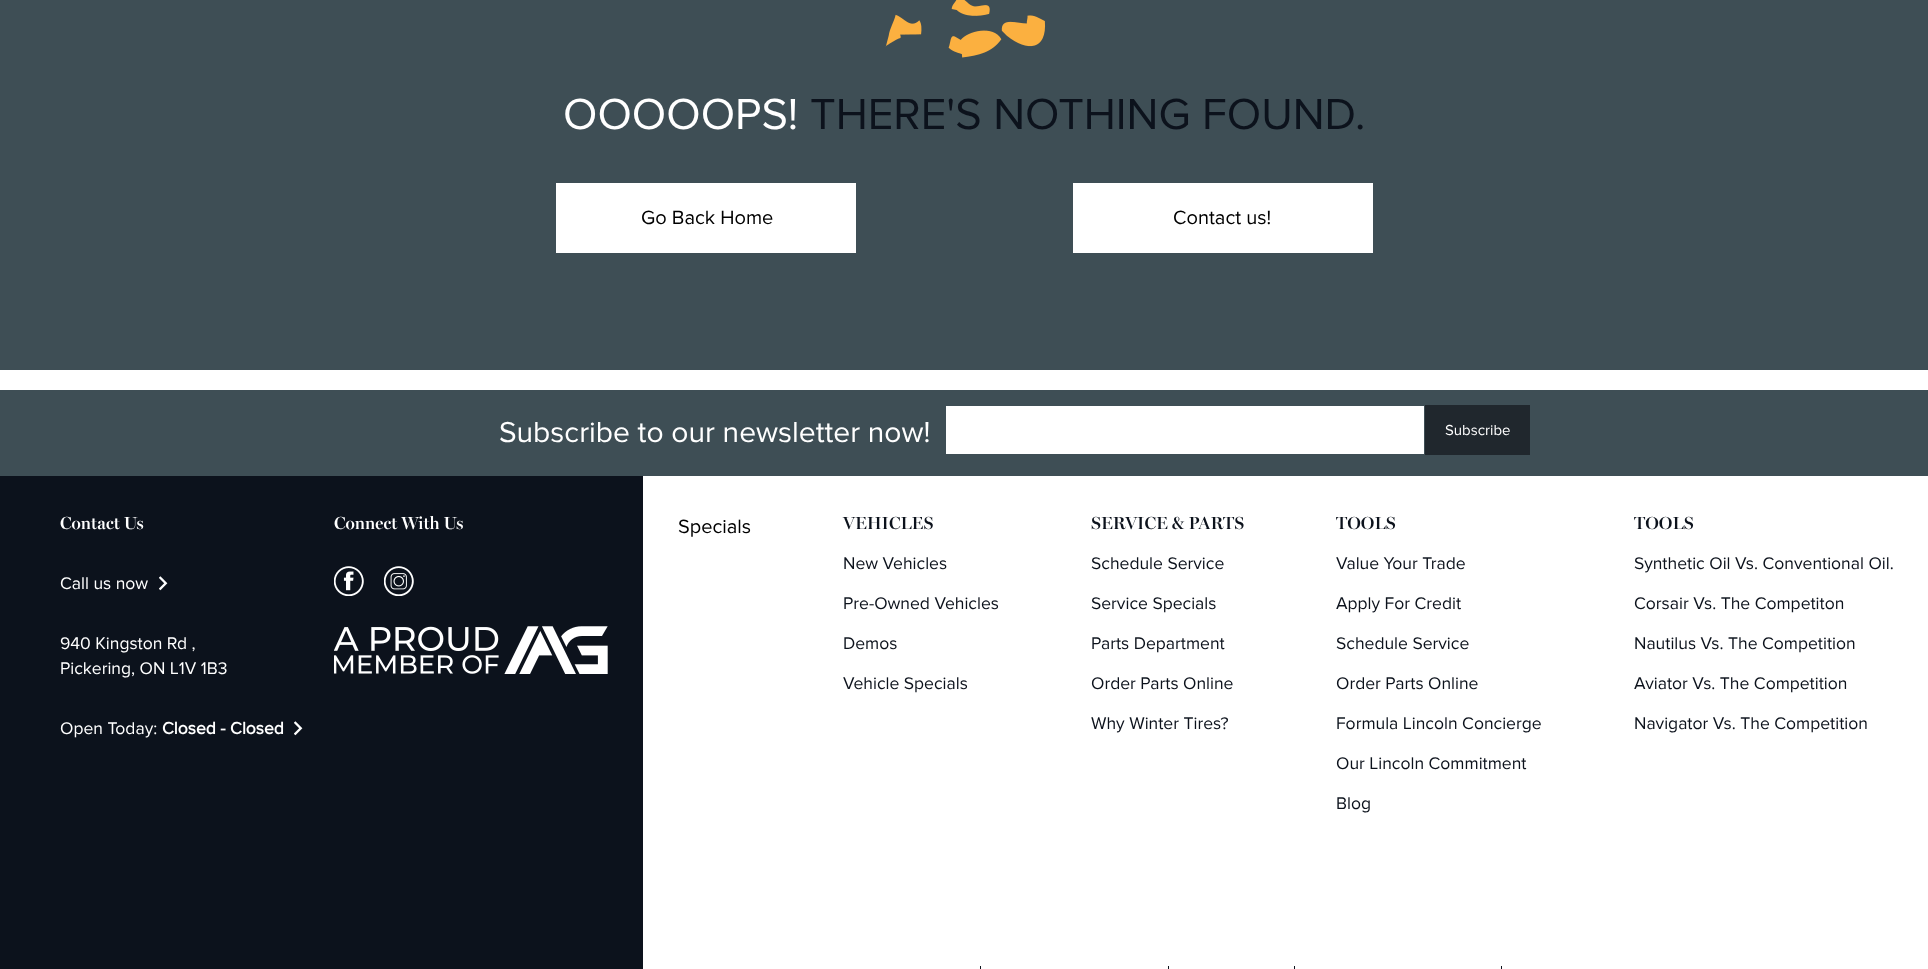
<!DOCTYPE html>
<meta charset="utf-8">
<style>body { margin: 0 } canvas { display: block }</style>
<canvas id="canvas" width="1928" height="969"></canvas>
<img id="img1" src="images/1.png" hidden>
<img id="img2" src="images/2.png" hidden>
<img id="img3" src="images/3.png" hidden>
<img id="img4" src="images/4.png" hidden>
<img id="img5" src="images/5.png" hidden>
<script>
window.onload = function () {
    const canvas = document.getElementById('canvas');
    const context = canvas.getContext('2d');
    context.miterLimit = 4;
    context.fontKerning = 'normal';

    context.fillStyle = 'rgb(255, 255, 255)';
    context.fillRect(0, 0, 1928, 969);
    context.fillStyle = 'rgb(62, 78, 85)';
    context.fillRect(0, 0, 1928, 370);
    context.drawImage(document.getElementById('img1'), 885, 0, 161, 58);
    context.fillStyle = 'rgb(255, 255, 255)';
    context.fillRect(556, 183, 300, 70);
    context.fillRect(1073, 183, 300, 70);
    context.fillStyle = 'rgb(62, 78, 85)';
    context.fillRect(0, 390, 1928, 86);
    context.fillStyle = 'rgb(255, 255, 255)';
    context.fillRect(946, 406, 478, 48);
    context.fillStyle = 'rgb(32, 39, 45)';
    context.fillRect(1425, 405, 105, 50);
    context.fillStyle = 'rgb(12, 18, 28)';
    context.fillRect(0, 476, 643, 493);
    context.drawImage(document.getElementById('img2'), 159, 576, 9, 15);
    context.drawImage(document.getElementById('img2'), 294, 721, 9, 15);
    context.drawImage(document.getElementById('img3'), 334, 566, 30, 30);
    context.drawImage(document.getElementById('img4'), 384, 566, 30, 30);
    context.drawImage(document.getElementById('img5'), 334, 626, 274, 48);
    context.fillRect(980, 966, 1, 3);
    context.fillRect(1168, 966, 1, 3);
    context.fillRect(1294, 966, 1, 3);
    context.fillRect(1501, 966, 1, 3);
    context.font = '45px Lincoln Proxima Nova';
    context.fillStyle = 'rgb(255, 255, 255)';
    context.fillText('OOOOOPS!', 563, 129);
    context.fillStyle = 'rgb(12, 18, 28)';
    context.fillText('THERE\'S NOTHING FOUND.', 810, 129);
    context.font = '20px Lincoln Proxima Nova';
    context.fillStyle = 'rgb(0, 0, 0)';
    context.fillText('Go Back Home', 641, 224);
    context.fillText('Contact us!', 1173, 224);
    context.font = '30px Lincoln Proxima Nova';
    context.fillStyle = 'rgb(255, 255, 255)';
    context.fillText('Subscribe to our newsletter now!', 499, 442);
    context.font = '15px Lincoln Proxima Nova';
    context.fillText('Subscribe', 1445, 435);
    context.font = '600 17.5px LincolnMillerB';
    context.fillText('Contact Us', 60, 529);
    context.font = '17.5px Lincoln Proxima Nova';
    context.fillText('Call us now', 60, 589);
    context.fillText('940 Kingston Rd ,', 60, 649);
    context.fillText('Pickering, ON L1V 1B3', 60, 674);
    context.fillText('Open Today:', 60, 734);
    context.font = 'bold 17.5px Lincoln Proxima Nova';
    context.fillText('Closed - Closed', 162, 734);
    context.font = '600 17.5px LincolnMillerB';
    context.fillText('Connect With Us', 334, 529);
    context.font = '20px Lincoln Proxima Nova';
    context.fillStyle = 'rgb(0, 0, 0)';
    context.fillText('Specials', 678, 533);
    context.font = '600 17.5px LincolnMillerB';
    context.fillStyle = 'rgb(12, 18, 28)';
    context.fillText('VEHICLES', 843, 529);
    context.font = '17.5px Lincoln Proxima Nova';
    context.fillText('New Vehicles', 843, 569);
    context.fillText('Pre-Owned Vehicles', 843, 609);
    context.fillText('Demos', 843, 649);
    context.fillText('Vehicle Specials', 843, 689);
    context.font = '600 17.5px LincolnMillerB';
    context.fillText('SERVICE & PARTS', 1091, 529);
    context.font = '17.5px Lincoln Proxima Nova';
    context.fillText('Schedule Service', 1091, 569);
    context.fillText('Service Specials', 1091, 609);
    context.fillText('Parts Department', 1091, 649);
    context.fillText('Order Parts Online', 1091, 689);
    context.fillText('Why Winter Tires?', 1091, 729);
    context.font = '600 17.5px LincolnMillerB';
    context.fillText('TOOLS', 1336, 529);
    context.font = '17.5px Lincoln Proxima Nova';
    context.fillText('Value Your Trade', 1336, 569);
    context.fillText('Apply For Credit', 1336, 609);
    context.fillText('Schedule Service', 1336, 649);
    context.fillText('Order Parts Online', 1336, 689);
    context.fillText('Formula Lincoln Concierge', 1336, 729);
    context.fillText('Our Lincoln Commitment', 1336, 769);
    context.fillText('Blog', 1336, 809);
    context.font = '600 17.5px LincolnMillerB';
    context.fillText('TOOLS', 1634, 529);
    context.font = '17.5px Lincoln Proxima Nova';
    context.fillText('Synthetic Oil Vs. Conventional Oil.', 1634, 569);
    context.fillText('Corsair Vs. The Competiton', 1634, 609);
    context.fillText('Nautilus Vs. The Competition', 1634, 649);
    context.fillText('Aviator Vs. The Competition', 1634, 689);
    context.fillText('Navigator Vs. The Competition', 1634, 729);
};
</script>
